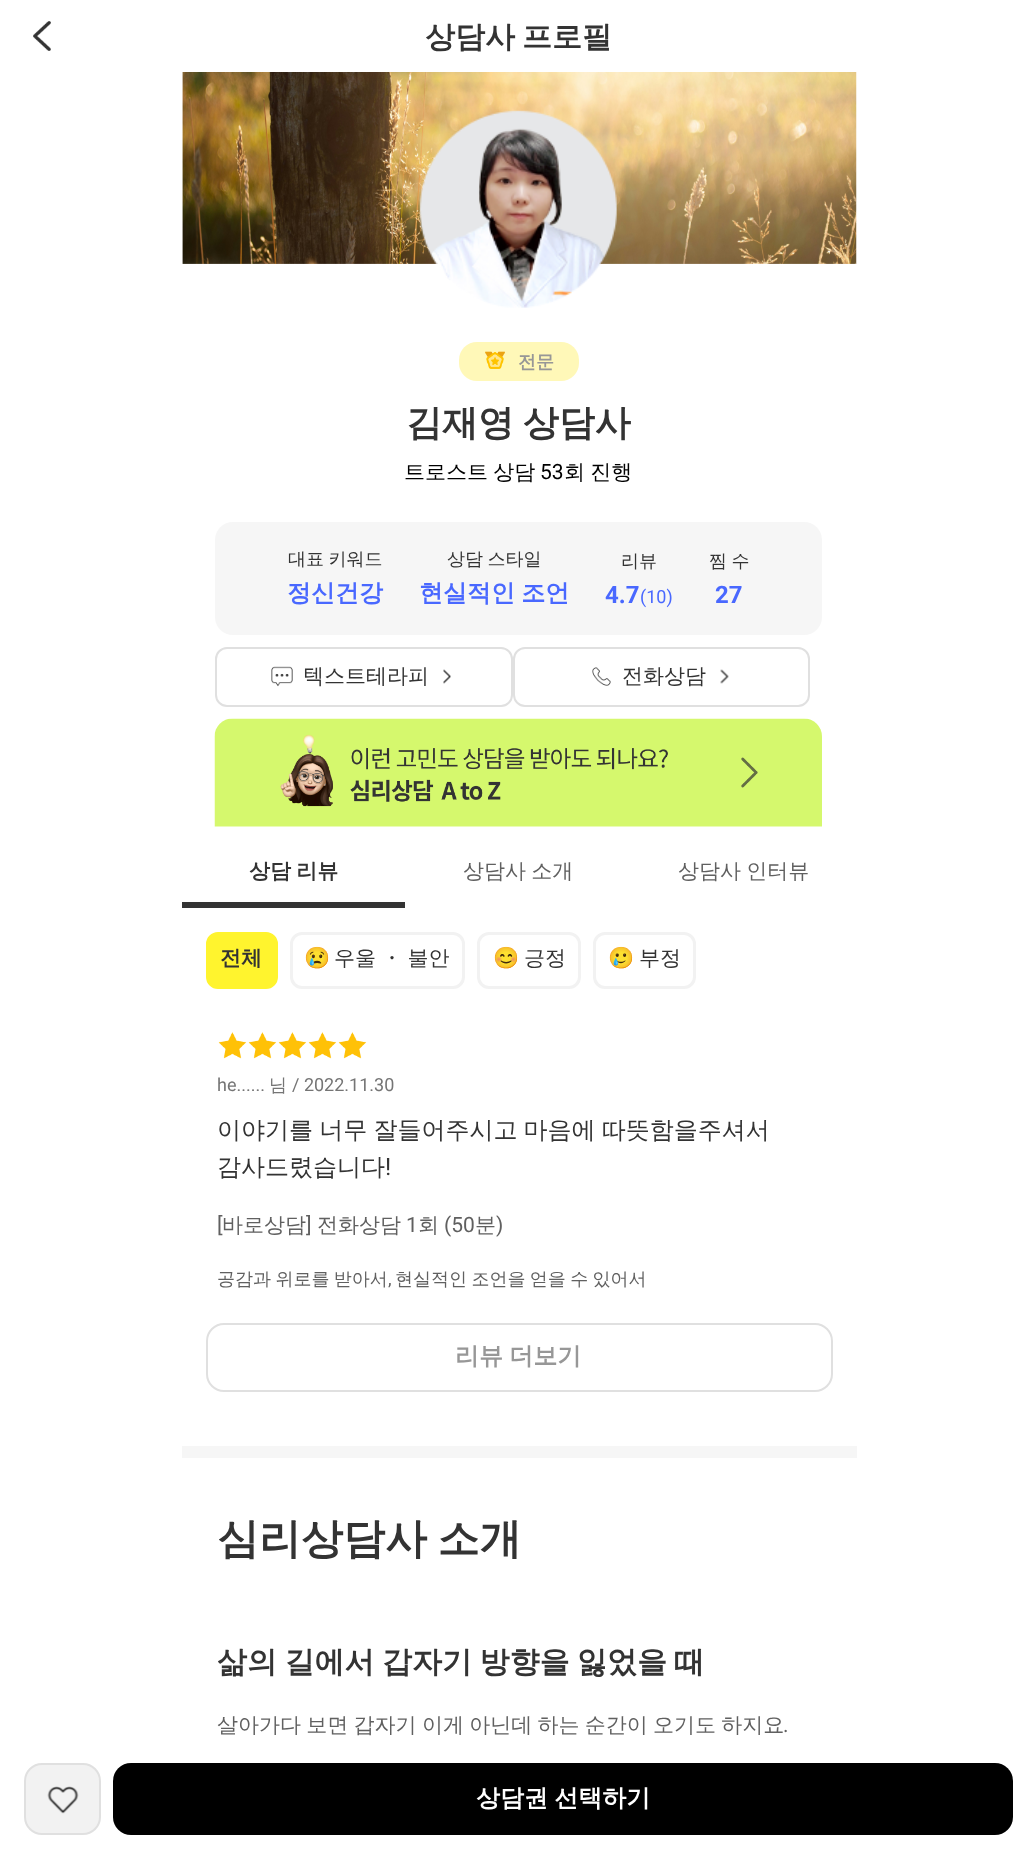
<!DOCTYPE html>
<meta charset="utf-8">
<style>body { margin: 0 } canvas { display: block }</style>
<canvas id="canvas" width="1036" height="1858"></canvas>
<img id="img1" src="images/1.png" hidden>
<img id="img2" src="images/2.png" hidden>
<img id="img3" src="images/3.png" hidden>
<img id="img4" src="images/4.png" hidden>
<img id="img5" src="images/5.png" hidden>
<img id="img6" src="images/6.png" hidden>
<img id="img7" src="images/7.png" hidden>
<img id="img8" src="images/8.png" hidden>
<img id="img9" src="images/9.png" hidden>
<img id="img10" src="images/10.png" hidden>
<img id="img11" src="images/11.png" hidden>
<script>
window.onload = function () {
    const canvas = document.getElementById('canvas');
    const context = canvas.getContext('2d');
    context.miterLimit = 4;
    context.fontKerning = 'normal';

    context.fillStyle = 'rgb(255, 255, 255)';
    context.fillRect(0, 0, 1036, 1858);
    context.drawImage(document.getElementById('img1'), 33, 21, 18, 30);
    context.drawImage(document.getElementById('img2'), 182, 72, 675, 236);
    context.fillStyle = 'rgb(255, 248, 184)';
    context.beginPath();
    context.roundRect(459, 342, 120, 39, 18);
    context.fill();
    context.drawImage(document.getElementById('img3'), 485, 351, 20, 18);
    context.fillStyle = 'rgb(246, 246, 246)';
    context.beginPath();
    context.roundRect(215, 522, 607, 113, 18);
    context.fill();
    context.beginPath();
    context.roundRect(216, 648, 296, 58, 11);
    context.strokeStyle = 'rgb(224, 224, 224)';
    context.lineWidth = 2;
    context.stroke();
    context.drawImage(document.getElementById('img4'), 271, 666, 22, 21);
    context.drawImage(document.getElementById('img5'), 443, 669, 8, 15);
    context.beginPath();
    context.roundRect(514, 648, 295, 58, 11);
    context.stroke();
    context.drawImage(document.getElementById('img6'), 592, 667, 19, 19);
    context.drawImage(document.getElementById('img7'), 720, 669, 9, 15);
    context.drawImage(document.getElementById('img8'), 214, 718, 608, 109);
    context.fillStyle = 'rgb(51, 51, 51)';
    context.fillRect(182, 902, 223, 6);
    context.fillStyle = 'rgb(255, 244, 46)';
    context.beginPath();
    context.roundRect(207.5, 933.5, 69, 54, 10.5);
    context.fill();
    context.strokeStyle = 'rgb(255, 244, 46)';
    context.lineWidth = 3;
    context.stroke();
    context.beginPath();
    context.roundRect(291.5, 933.5, 172, 54, 10.5);
    context.strokeStyle = 'rgb(242, 242, 242)';
    context.stroke();
    context.beginPath();
    context.roundRect(478.5, 933.5, 101, 54, 10.5);
    context.stroke();
    context.beginPath();
    context.roundRect(594.5, 933.5, 100, 54, 10.5);
    context.stroke();
    context.drawImage(document.getElementById('img9'), 218, 1032, 29, 27);
    context.drawImage(document.getElementById('img9'), 248, 1032, 29, 27);
    context.drawImage(document.getElementById('img10'), 278, 1032, 29, 27);
    context.drawImage(document.getElementById('img9'), 308, 1032, 29, 27);
    context.drawImage(document.getElementById('img10'), 338, 1032, 29, 27);
    context.beginPath();
    context.roundRect(207, 1324, 625, 67, 17);
    context.strokeStyle = 'rgb(224, 224, 224)';
    context.lineWidth = 2;
    context.stroke();
    context.fillStyle = 'rgb(246, 246, 246)';
    context.fillRect(182, 1446, 675, 12);
    context.fillStyle = 'rgb(242, 242, 242)';
    context.beginPath();
    context.roundRect(25, 1764, 75, 70, 17);
    context.fill();
    context.stroke();
    context.drawImage(document.getElementById('img11'), 47, 1786, 32, 28);
    context.fillStyle = 'rgb(0, 0, 0)';
    context.beginPath();
    context.roundRect(113, 1763, 900, 72, 18);
    context.fill();
    context.wordSpacing = '-2px';
    context.font = 'bold 30px WenQuanYi Zen Hei';
    context.fillStyle = 'rgb(51, 51, 51)';
    context.fillText('상담사 프로필', 425, 47);
    context.wordSpacing = '0px';
    context.font = 'bold 18px WenQuanYi Zen Hei';
    context.fillStyle = 'rgb(151, 151, 151)';
    context.fillText('전문', 518, 368);
    context.wordSpacing = '-2px';
    context.font = 'bold 36px WenQuanYi Zen Hei';
    context.fillStyle = 'rgb(51, 51, 51)';
    context.fillText('김재영 상담사', 406, 435);
    context.wordSpacing = '-1px';
    context.font = '500 21px WenQuanYi Zen Hei';
    context.fillStyle = 'rgb(0, 0, 0)';
    context.fillText('트로스트 상담', 404, 479);
    context.wordSpacing = '0px';
    context.font = '21px Roboto';
    context.fillText('53', 540, 479);
    context.wordSpacing = '-1px';
    context.font = '500 21px WenQuanYi Zen Hei';
    context.fillText('회 진행', 564, 479);
    context.font = '500 18px WenQuanYi Zen Hei';
    context.fillStyle = 'rgb(51, 51, 51)';
    context.fillText('대표 키워드', 288, 565);
    context.wordSpacing = '0px';
    context.font = 'bold 24px WenQuanYi Zen Hei';
    context.fillStyle = 'rgb(73, 104, 255)';
    context.fillText('정신건강', 287, 601);
    context.wordSpacing = '-1px';
    context.font = '500 18px WenQuanYi Zen Hei';
    context.fillStyle = 'rgb(51, 51, 51)';
    context.fillText('상담 스타일', 447, 565);
    context.font = 'bold 24px WenQuanYi Zen Hei';
    context.fillStyle = 'rgb(73, 104, 255)';
    context.fillText('현실적인 조언', 419, 601);
    context.wordSpacing = '0px';
    context.font = '500 18px WenQuanYi Zen Hei';
    context.fillStyle = 'rgb(51, 51, 51)';
    context.fillText('리뷰', 621, 567);
    context.font = 'bold 24px Roboto';
    context.fillStyle = 'rgb(73, 104, 255)';
    context.fillText('4.7', 605, 603);
    context.font = '18px Roboto';
    context.fillText('(10)', 640, 603);
    context.wordSpacing = '-1px';
    context.font = '500 18px WenQuanYi Zen Hei';
    context.fillStyle = 'rgb(51, 51, 51)';
    context.fillText('찜 수', 709, 567);
    context.wordSpacing = '0px';
    context.font = 'bold 24px Roboto';
    context.fillStyle = 'rgb(73, 104, 255)';
    context.fillText('27', 715, 603);
    context.font = '500 21px WenQuanYi Zen Hei';
    context.fillStyle = 'rgb(51, 51, 51)';
    context.fillText('텍스트테라피', 303, 683);
    context.fillText('전화상담', 622, 683);
    context.wordSpacing = '-1px';
    context.font = 'bold 21px WenQuanYi Zen Hei';
    context.fillText('상담 리뷰', 249, 878);
    context.font = '500 21px WenQuanYi Zen Hei';
    context.fillStyle = 'rgb(96, 96, 96)';
    context.fillText('상담사 소개', 463, 878);
    context.fillText('상담사 인터뷰', 678, 878);
    context.wordSpacing = '0px';
    context.font = 'bold 21px WenQuanYi Zen Hei';
    context.fillStyle = 'rgb(51, 51, 51)';
    context.fillText('전체', 220, 965);
    context.font = '21px Noto Color Emoji';
    context.fillText('😢', 304, 965);
    context.wordSpacing = '-1px';
    context.font = '500 21px WenQuanYi Zen Hei';
    context.fillText('우울 ・ 불안', 334, 965);
    context.wordSpacing = '0px';
    context.font = '21px Noto Color Emoji';
    context.fillText('😊', 493, 965);
    context.font = '500 21px WenQuanYi Zen Hei';
    context.fillText('긍정', 524, 965);
    context.font = '21px Noto Color Emoji';
    context.fillText('🥲', 608, 965);
    context.font = '500 21px WenQuanYi Zen Hei';
    context.fillText('부정', 639, 965);
    context.font = '18px Roboto';
    context.fillStyle = 'rgb(117, 117, 117)';
    context.fillText('he......', 217, 1091);
    context.font = '500 18px WenQuanYi Zen Hei';
    context.fillText('님', 269, 1091);
    context.font = '18px Roboto';
    context.fillText('/ 2022.11.30', 292, 1091);
    context.wordSpacing = '-1px';
    context.font = '500 24px WenQuanYi Zen Hei';
    context.fillStyle = 'rgb(51, 51, 51)';
    context.fillText('이야기를 너무 잘들어주시고 마음에 따뜻함을주셔서', 217, 1138);
    context.wordSpacing = '0px';
    context.fillText('감사드렸습니다', 217, 1175);
    context.font = '24px Roboto';
    context.fillText('!', 385, 1175);
    context.font = '21px Roboto';
    context.fillStyle = 'rgb(96, 96, 96)';
    context.fillText('[', 217, 1232);
    context.font = '500 21px WenQuanYi Zen Hei';
    context.fillText('바로상담', 222, 1232);
    context.font = '21px Roboto';
    context.fillText(']', 306, 1232);
    context.font = '500 21px WenQuanYi Zen Hei';
    context.fillText('전화상담', 317, 1232);
    context.font = '21px Roboto';
    context.fillText('1', 406, 1232);
    context.font = '500 21px WenQuanYi Zen Hei';
    context.fillText('회', 418, 1232);
    context.font = '21px Roboto';
    context.fillText('(50', 444, 1232);
    context.font = '500 21px WenQuanYi Zen Hei';
    context.fillText('분', 475, 1232);
    context.font = '21px Roboto';
    context.fillText(')', 496, 1232);
    context.wordSpacing = '-1px';
    context.font = '500 18px WenQuanYi Zen Hei';
    context.fillText('공감과 위로를 받아서', 217, 1285);
    context.wordSpacing = '0px';
    context.font = '18px Roboto';
    context.fillText(',', 388, 1285);
    context.wordSpacing = '-1px';
    context.font = '500 18px WenQuanYi Zen Hei';
    context.fillText('현실적인 조언을 얻을 수 있어서', 395, 1285);
    context.font = 'bold 24px WenQuanYi Zen Hei';
    context.fillStyle = 'rgb(151, 151, 151)';
    context.fillText('리뷰 더보기', 455, 1364);
    context.wordSpacing = '-2px';
    context.font = 'bold 42px WenQuanYi Zen Hei';
    context.fillStyle = 'rgb(51, 51, 51)';
    context.fillText('심리상담사 소개', 217, 1553);
    context.wordSpacing = '-1.5px';
    context.font = 'bold 30px WenQuanYi Zen Hei';
    context.fillText('삶의 길에서 갑자기 방향을 잃었을 때', 217, 1672);
    context.wordSpacing = '-1px';
    context.font = '500 21px WenQuanYi Zen Hei';
    context.fillStyle = 'rgb(96, 96, 96)';
    context.fillText('살아가다 보면 갑자기 이게 아닌데 하는 순간이 오기도 하지요', 217, 1732);
    context.wordSpacing = '0px';
    context.font = '21px Roboto';
    context.fillText('.', 783, 1732);
    context.wordSpacing = '-1px';
    context.font = 'bold 24px WenQuanYi Zen Hei';
    context.fillStyle = 'rgb(255, 255, 255)';
    context.fillText('상담권 선택하기', 476, 1806);
};
</script>
